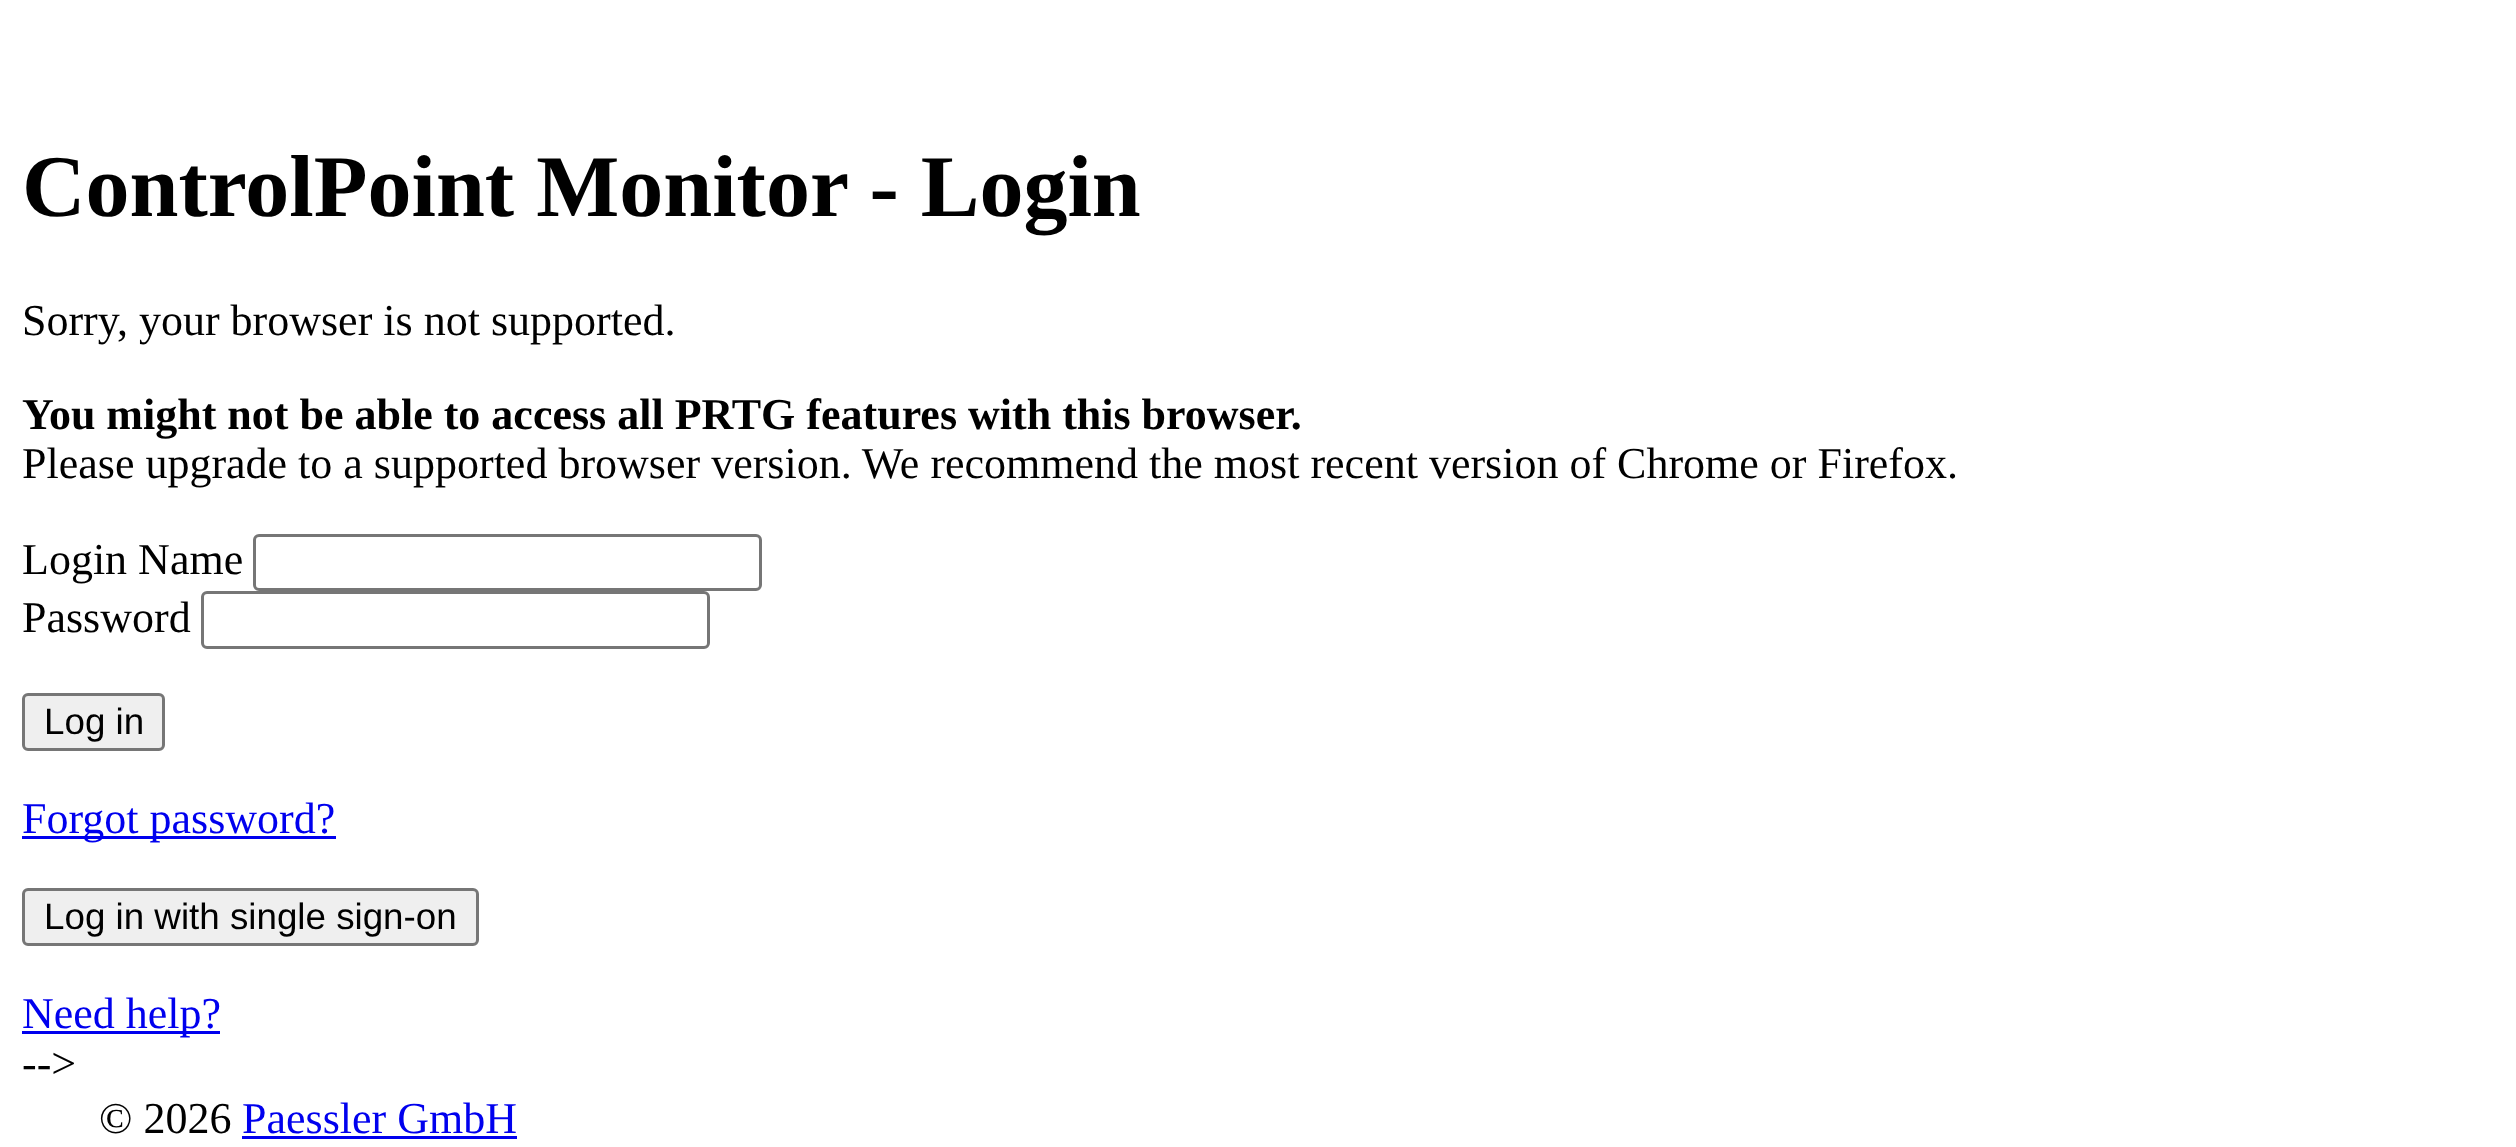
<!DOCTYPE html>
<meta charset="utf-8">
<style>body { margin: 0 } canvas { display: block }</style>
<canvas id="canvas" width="2516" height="1147"></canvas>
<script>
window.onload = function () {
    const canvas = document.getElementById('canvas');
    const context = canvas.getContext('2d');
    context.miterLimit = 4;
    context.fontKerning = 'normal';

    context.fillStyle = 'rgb(255, 255, 255)';
    context.fillRect(0, 0, 2516, 1147);
    context.beginPath();
    context.roundRect(254.5, 535.5, 506, 54, 4.5);
    context.strokeStyle = 'rgb(118, 118, 118)';
    context.lineWidth = 3;
    context.stroke();
    context.beginPath();
    context.roundRect(202.5, 592.5, 506, 55, 4.5);
    context.stroke();
    context.fillStyle = 'rgb(239, 239, 239)';
    context.beginPath();
    context.roundRect(23.5, 694.5, 140, 55, 4.5);
    context.fill();
    context.stroke();
    context.fillStyle = 'rgb(0, 0, 238)';
    context.fillRect(22, 836, 314, 3);
    context.fillStyle = 'rgb(239, 239, 239)';
    context.beginPath();
    context.roundRect(23.5, 889.5, 454, 55, 4.5);
    context.fill();
    context.stroke();
    context.fillStyle = 'rgb(0, 0, 238)';
    context.fillRect(22, 1031, 198, 3);
    context.fillRect(242, 1136, 275, 3);
    context.font = 'bold 88px Liberation Serif';
    context.fillStyle = 'rgb(0, 0, 0)';
    context.fillText('ControlPoint Monitor - Login', 22, 216);
    context.font = '44px Liberation Serif';
    context.fillText('Sorry, your browser is not supported.', 22, 335);
    context.font = 'bold 44px Liberation Serif';
    context.fillText('You might not be able to access all PRTG features with this browser.', 22, 429);
    context.font = '44px Liberation Serif';
    context.fillText('Please upgrade to a supported browser version. We recommend the most recent version of Chrome or Firefox.', 22, 478);
    context.fillText('Login Name', 22, 574);
    context.fillText('Password', 22, 632);
    context.font = '36.75px Liberation Sans';
    context.fillText('Log in', 44, 734);
    context.font = '44px Liberation Serif';
    context.fillStyle = 'rgb(0, 0, 238)';
    context.fillText('Forgot password?', 22, 833);
    context.font = '36.75px Liberation Sans';
    context.fillStyle = 'rgb(0, 0, 0)';
    context.fillText('Log in with single sign-on', 44, 929);
    context.font = '44px Liberation Serif';
    context.fillStyle = 'rgb(0, 0, 238)';
    context.fillText('Need help?', 22, 1028);
    context.fillStyle = 'rgb(0, 0, 0)';
    context.fillText('-->', 22, 1078);
    context.fillText('© 2026', 99, 1133);
    context.fillStyle = 'rgb(0, 0, 238)';
    context.fillText('Paessler GmbH', 242, 1133);
};
</script>
